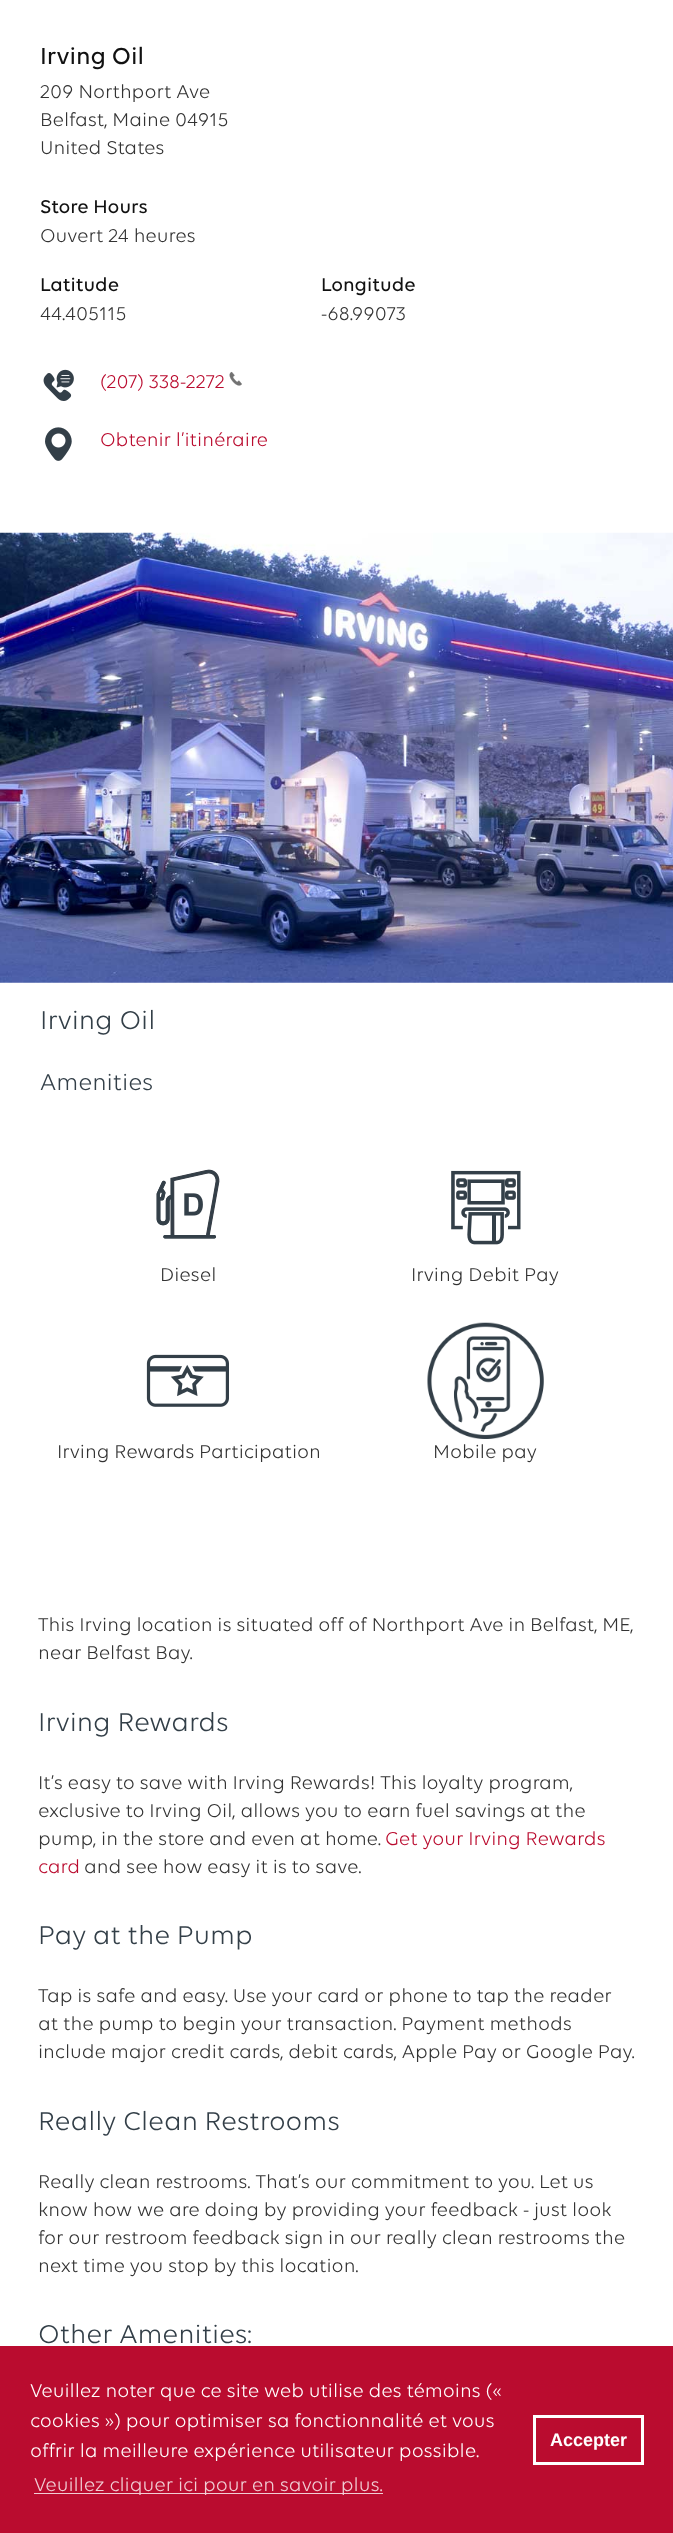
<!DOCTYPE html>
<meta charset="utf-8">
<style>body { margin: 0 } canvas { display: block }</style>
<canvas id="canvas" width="673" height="2533"></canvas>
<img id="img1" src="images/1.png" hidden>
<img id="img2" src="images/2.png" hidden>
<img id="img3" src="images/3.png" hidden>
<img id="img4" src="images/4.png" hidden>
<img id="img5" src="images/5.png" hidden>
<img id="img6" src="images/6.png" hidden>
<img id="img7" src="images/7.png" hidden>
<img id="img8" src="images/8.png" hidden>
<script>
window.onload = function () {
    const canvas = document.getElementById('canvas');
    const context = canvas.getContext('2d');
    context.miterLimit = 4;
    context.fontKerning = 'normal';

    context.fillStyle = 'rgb(255, 255, 255)';
    context.fillRect(0, 0, 673, 2533);
    context.drawImage(document.getElementById('img1'), 43, 369, 31, 32);
    context.drawImage(document.getElementById('img2'), 229, 371, 13, 15);
    context.drawImage(document.getElementById('img3'), 45, 427, 27, 34);
    context.drawImage(document.getElementById('img4'), 0, 532, 673, 451);
    context.drawImage(document.getElementById('img5'), 156, 1169, 64, 70);
    context.drawImage(document.getElementById('img6'), 451, 1170, 70, 75);
    context.drawImage(document.getElementById('img7'), 146, 1354, 83, 53);
    context.drawImage(document.getElementById('img8'), 427, 1322, 117, 117);
    context.fillStyle = 'rgb(186, 12, 47)';
    context.fillRect(0, 2346, 673, 187);
    context.fillStyle = 'rgb(241, 206, 213)';
    context.fillRect(34, 2493, 349, 1);
    context.strokeStyle = 'rgb(255, 255, 255)';
    context.lineWidth = 3;
    context.strokeRect(534.5, 2416.5, 108, 47);
    context.font = '500 25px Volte';
    context.fillStyle = 'rgb(17, 17, 17)';
    context.fillText('Irving Oil', 40, 64);
    context.font = '20px Volte';
    context.fillStyle = 'rgb(51, 51, 51)';
    context.fillText('209 Northport Ave', 40, 98);
    context.fillText('Belfast, Maine 04915', 40, 126);
    context.fillText('United States', 40, 154);
    context.font = '500 20px Volte';
    context.fillStyle = 'rgb(17, 17, 17)';
    context.fillText('Store Hours', 40, 213);
    context.font = '20px Volte';
    context.fillStyle = 'rgb(51, 51, 51)';
    context.fillText('Ouvert 24 heures', 40, 242);
    context.font = '500 20px Volte';
    context.fillStyle = 'rgb(17, 17, 17)';
    context.fillText('Latitude', 40, 291);
    context.font = '20px Volte';
    context.fillStyle = 'rgb(51, 51, 51)';
    context.fillText('44.405115', 40, 320);
    context.font = '500 20px Volte';
    context.fillStyle = 'rgb(17, 17, 17)';
    context.fillText('Longitude', 321, 291);
    context.font = '20px Volte';
    context.fillStyle = 'rgb(51, 51, 51)';
    context.fillText('-68.99073', 321, 320);
    context.fillStyle = 'rgb(186, 12, 47)';
    context.fillText('(207) 338-2272', 100, 388);
    context.fillText('Obtenir l’itinéraire', 100, 446);
    context.font = '27.75px Volte';
    context.fillStyle = 'rgb(51, 63, 72)';
    context.fillText('Irving Oil', 40, 1029);
    context.font = '24.5px Volte';
    context.fillText('Amenities', 40, 1090);
    context.font = '20px Volte';
    context.fillStyle = 'rgb(51, 51, 51)';
    context.fillText('Diesel', 160, 1281);
    context.fillText('Irving Debit Pay', 411, 1281);
    context.fillText('Irving Rewards Participation', 57, 1458);
    context.fillText('Mobile pay', 433, 1458);
    context.fillText('This Irving location is situated off of Northport Ave in Belfast, ME,', 38, 1631);
    context.fillText('near Belfast Bay.', 38, 1659);
    context.font = '27.75px Volte';
    context.fillStyle = 'rgb(51, 63, 72)';
    context.fillText('Irving Rewards', 38, 1731);
    context.font = '20px Volte';
    context.fillStyle = 'rgb(51, 51, 51)';
    context.fillText('It’s easy to save with Irving Rewards! This loyalty program,', 38, 1789);
    context.fillText('exclusive to Irving Oil, allows you to earn fuel savings at the', 38, 1817);
    context.fillText('pump, in the store and even at home.', 38, 1845);
    context.fillStyle = 'rgb(186, 12, 47)';
    context.fillText('Get your Irving Rewards', 385, 1845);
    context.fillText('card', 38, 1873);
    context.fillStyle = 'rgb(51, 51, 51)';
    context.fillText('and see how easy it is to save.', 84, 1873);
    context.font = '27.75px Volte';
    context.fillStyle = 'rgb(51, 63, 72)';
    context.fillText('Pay at the Pump', 38, 1944);
    context.font = '20px Volte';
    context.fillStyle = 'rgb(51, 51, 51)';
    context.fillText('Tap is safe and easy. Use your card or phone to tap the reader', 38, 2002);
    context.fillText('at the pump to begin your transaction. Payment methods', 38, 2030);
    context.fillText('include major credit cards, debit cards, Apple Pay or Google Pay.', 38, 2058);
    context.font = '27.75px Volte';
    context.fillStyle = 'rgb(51, 63, 72)';
    context.fillText('Really Clean Restrooms', 38, 2130);
    context.font = '20px Volte';
    context.fillStyle = 'rgb(51, 51, 51)';
    context.fillText('Really clean restrooms. That’s our commitment to you. Let us', 38, 2188);
    context.fillText('know how we are doing by providing your feedback - just look', 38, 2216);
    context.fillText('for our restroom feedback sign in our really clean restrooms the', 38, 2244);
    context.fillText('next time you stop by this location.', 38, 2272);
    context.font = '27.75px Volte';
    context.fillStyle = 'rgb(51, 63, 72)';
    context.fillText('Other Amenities:', 38, 2343);
    context.font = '20px Volte';
    context.fillStyle = 'rgb(255, 255, 255)';
    context.fillText('Veuillez noter que ce site web utilise des témoins («', 30, 2397);
    context.fillText('cookies ») pour optimiser sa fonctionnalité et vous', 30, 2427);
    context.fillText('offrir la meilleure expérience utilisateur possible.', 30, 2457);
    context.fillStyle = 'rgb(241, 206, 213)';
    context.fillText('Veuillez cliquer ici pour en savoir plus.', 34, 2491);
    context.font = 'bold 18px Liberation Sans';
    context.fillStyle = 'rgb(255, 255, 255)';
    context.fillText('Accepter', 550, 2446);
};
</script>
